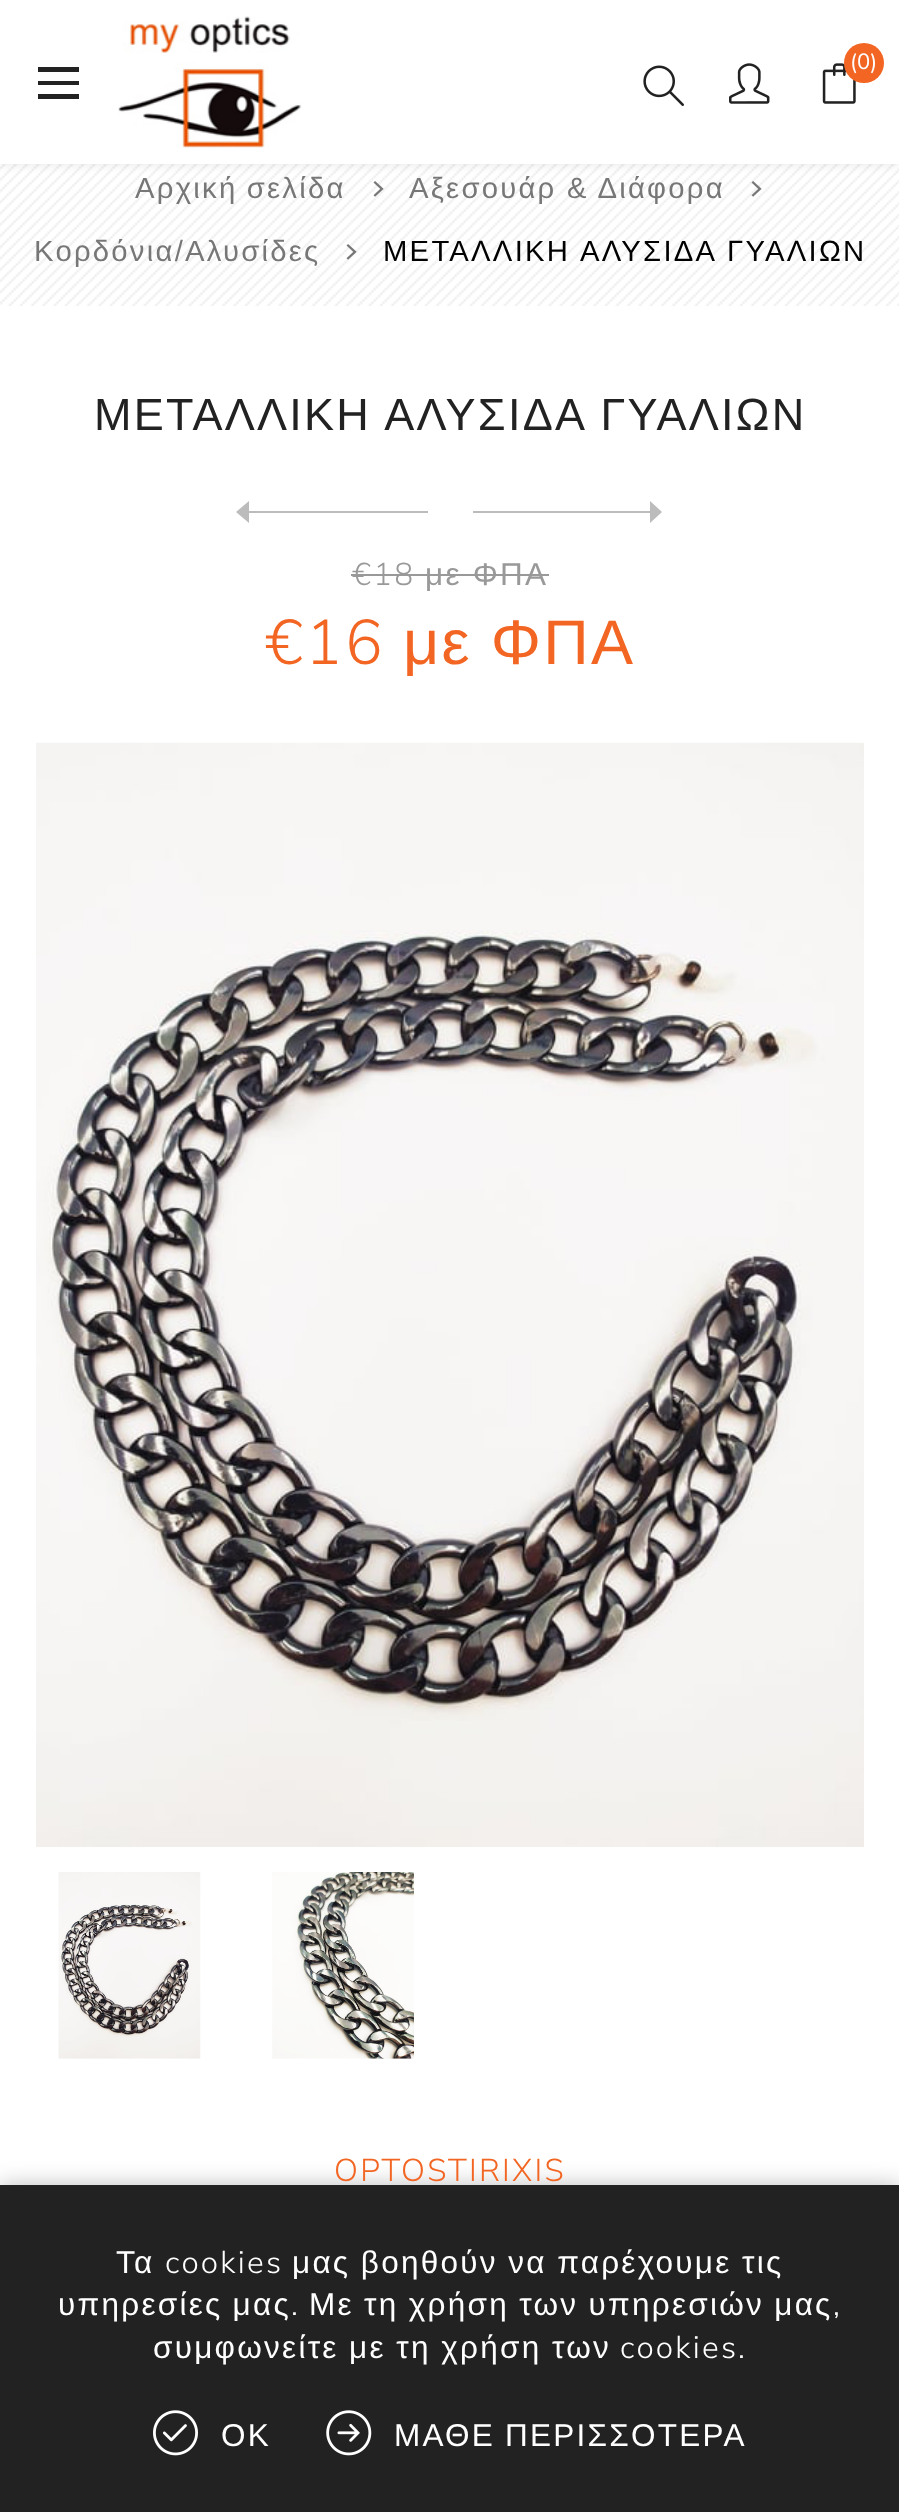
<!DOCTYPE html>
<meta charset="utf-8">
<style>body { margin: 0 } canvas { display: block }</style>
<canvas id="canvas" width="899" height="2512"></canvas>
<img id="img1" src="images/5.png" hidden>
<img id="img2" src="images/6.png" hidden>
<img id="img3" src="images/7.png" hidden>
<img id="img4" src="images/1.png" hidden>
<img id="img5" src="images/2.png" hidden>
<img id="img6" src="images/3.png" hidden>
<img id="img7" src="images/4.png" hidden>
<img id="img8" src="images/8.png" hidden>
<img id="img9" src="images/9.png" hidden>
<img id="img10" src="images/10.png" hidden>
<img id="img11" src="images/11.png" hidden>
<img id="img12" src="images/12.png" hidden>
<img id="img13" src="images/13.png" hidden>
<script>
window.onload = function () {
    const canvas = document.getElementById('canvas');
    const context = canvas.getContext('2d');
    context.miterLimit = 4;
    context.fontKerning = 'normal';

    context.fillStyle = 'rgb(255, 255, 255)';
    context.fillRect(0, 0, 899, 2512);
    context.drawImage(document.getElementById('img1'), 0, 164, 899, 142);
    context.drawImage(document.getElementById('img2'), 373, 181, 11, 16);
    context.drawImage(document.getElementById('img3'), 751, 181, 11, 16);
    context.fillStyle = 'rgba(0, 0, 0, 0.1)';
    context.filter = 'blur(5.5px)';
    context.beginPath();
    context.rect(0, 0, 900, 164);
    context.fill();
    context.filter = 'none';
    context.fillStyle = 'rgb(255, 255, 255)';
    context.fillRect(0, 0, 899, 164);
    context.fillStyle = 'rgb(34, 34, 34)';
    context.beginPath();
    context.moveTo(38, 67);
    context.lineTo(38, 72);
    context.lineTo(79, 72);
    context.lineTo(79, 67);
    context.closePath();
    context.moveTo(38, 85);
    context.lineTo(79, 85);
    context.lineTo(79, 81);
    context.lineTo(38, 81);
    context.closePath();
    context.moveTo(38, 99);
    context.lineTo(79, 99);
    context.lineTo(79, 94);
    context.lineTo(38, 94);
    context.closePath();
    context.fill();
    context.drawImage(document.getElementById('img4'), 118, 16, 184, 132);
    context.drawImage(document.getElementById('img5'), 643, 65, 41, 41);
    context.drawImage(document.getElementById('img6'), 729, 63, 41, 41);
    context.drawImage(document.getElementById('img7'), 822, 63, 34, 41);
    context.fillStyle = 'rgb(242, 101, 34)';
    context.beginPath();
    context.arc(864, 63, 20, 0, 2 * Math.PI);
    context.fill();
    context.drawImage(document.getElementById('img8'), 346, 244, 11, 16);
    context.save();
    context.beginPath();
    context.rect(236, 491, 192, 45);
    context.clip();
    context.fillStyle = 'rgb(188, 188, 188)';
    context.beginPath();
    context.moveTo(236, 512);
    context.lineTo(249, 501);
    context.lineTo(249, 511);
    context.lineTo(446, 511);
    context.lineTo(446, 513);
    context.lineTo(249, 513);
    context.lineTo(249, 523);
    context.closePath();
    context.fill();
    context.restore();
    context.save();
    context.beginPath();
    context.rect(473, 491, 191, 45);
    context.clip();
    context.fillStyle = 'rgb(188, 188, 188)';
    context.beginPath();
    context.moveTo(662, 512);
    context.lineTo(650, 523);
    context.lineTo(650, 513);
    context.lineTo(452, 513);
    context.lineTo(452, 511);
    context.lineTo(650, 511);
    context.lineTo(650, 501);
    context.closePath();
    context.fill();
    context.restore();
    context.fillStyle = 'rgb(153, 153, 153)';
    context.fillRect(351, 574, 198, 2);
    context.drawImage(document.getElementById('img9'), 36, 742, 828, 1105);
    context.drawImage(document.getElementById('img10'), 58, 1872, 143, 187);
    context.drawImage(document.getElementById('img11'), 272, 1872, 142, 187);
    context.fillStyle = 'rgba(0, 0, 0, 0.25)';
    context.filter = 'blur(11px)';
    context.beginPath();
    context.rect(0, 2185, 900, 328);
    context.fill();
    context.filter = 'none';
    context.fillStyle = 'rgb(34, 34, 34)';
    context.fillRect(0, 2185, 899, 327);
    context.drawImage(document.getElementById('img12'), 153, 2410, 45, 46);
    context.drawImage(document.getElementById('img13'), 326, 2410, 46, 46);
    context.font = '22px Nunito Sans';
    context.fillStyle = 'rgb(255, 255, 255)';
    context.fillText('(0)', 850, 69);
    context.letterSpacing = '2.25px';
    context.wordSpacing = '-1px';
    context.font = '29.25px Liberation Sans';
    context.fillStyle = 'rgb(119, 119, 119)';
    context.fillText('Αρχική σελίδα', 135, 198);
    context.wordSpacing = '0px';
    context.fillText('Αξεσουάρ & Διάφορα', 409, 198);
    context.fillText('Κορδόνια/Αλυσίδες', 34, 261);
    context.wordSpacing = '1px';
    context.fillStyle = 'rgb(0, 0, 0)';
    context.fillText('ΜΕΤΑΛΛΙΚΗ ΑΛΥΣΙΔΑ ΓΥΑΛΙΩΝ', 383, 261);
    context.font = '45px Liberation Sans';
    context.fillStyle = 'rgb(34, 34, 34)';
    context.fillText('ΜΕΤΑΛΛΙΚΗ ΑΛΥΣΙΔΑ ΓΥΑΛΙΩΝ', 94, 430);
    context.wordSpacing = '0px';
    context.font = '300 31.5px Nunito Sans';
    context.fillStyle = 'rgb(153, 153, 153)';
    context.fillText('€18', 352, 585);
    context.font = '31.5px Liberation Sans';
    context.fillText('με ΦΠΑ', 425, 585);
    context.font = '300 63px Nunito Sans';
    context.fillStyle = 'rgb(242, 101, 34)';
    context.fillText('€16', 265, 664);
    context.wordSpacing = '-1px';
    context.font = '63px Liberation Sans';
    context.fillText('με ΦΠΑ', 403, 664);
    context.wordSpacing = '0px';
    context.font = '300 31.5px Nunito Sans';
    context.fillText('OPTOSTIRIXIS', 334, 2181);
    context.font = '31.5px Liberation Sans';
    context.fillStyle = 'rgb(255, 255, 255)';
    context.fillText('Τα', 116, 2273);
    context.font = '300 31.5px Nunito Sans';
    context.fillText('cookies', 165, 2273);
    context.wordSpacing = '-0.5px';
    context.font = '31.5px Liberation Sans';
    context.fillText('μας βοηθούν να παρέχουμε τις', 292, 2273);
    context.wordSpacing = '-0.75px';
    context.fillText('υπηρεσίες μας', 58, 2315);
    context.wordSpacing = '0px';
    context.font = '300 31.5px Nunito Sans';
    context.fillText('.', 291, 2315);
    context.wordSpacing = '-0.75px';
    context.font = '31.5px Liberation Sans';
    context.fillText('Με τη χρήση των υπηρεσιών μας', 309, 2315);
    context.wordSpacing = '0px';
    context.font = '300 31.5px Nunito Sans';
    context.fillText(',', 833, 2315);
    context.wordSpacing = '-0.5px';
    context.font = '31.5px Liberation Sans';
    context.fillText('συμφωνείτε με τη χρήση των', 153, 2358);
    context.wordSpacing = '0px';
    context.font = '300 31.5px Nunito Sans';
    context.fillText('cookies.', 620, 2358);
    context.font = '31.5px Liberation Sans';
    context.fillText('ΟΚ', 221, 2446);
    context.wordSpacing = '-1px';
    context.fillText('ΜΑΘΕ ΠΕΡΙΣΣΟΤΕΡΑ', 394, 2446);
};
</script>
